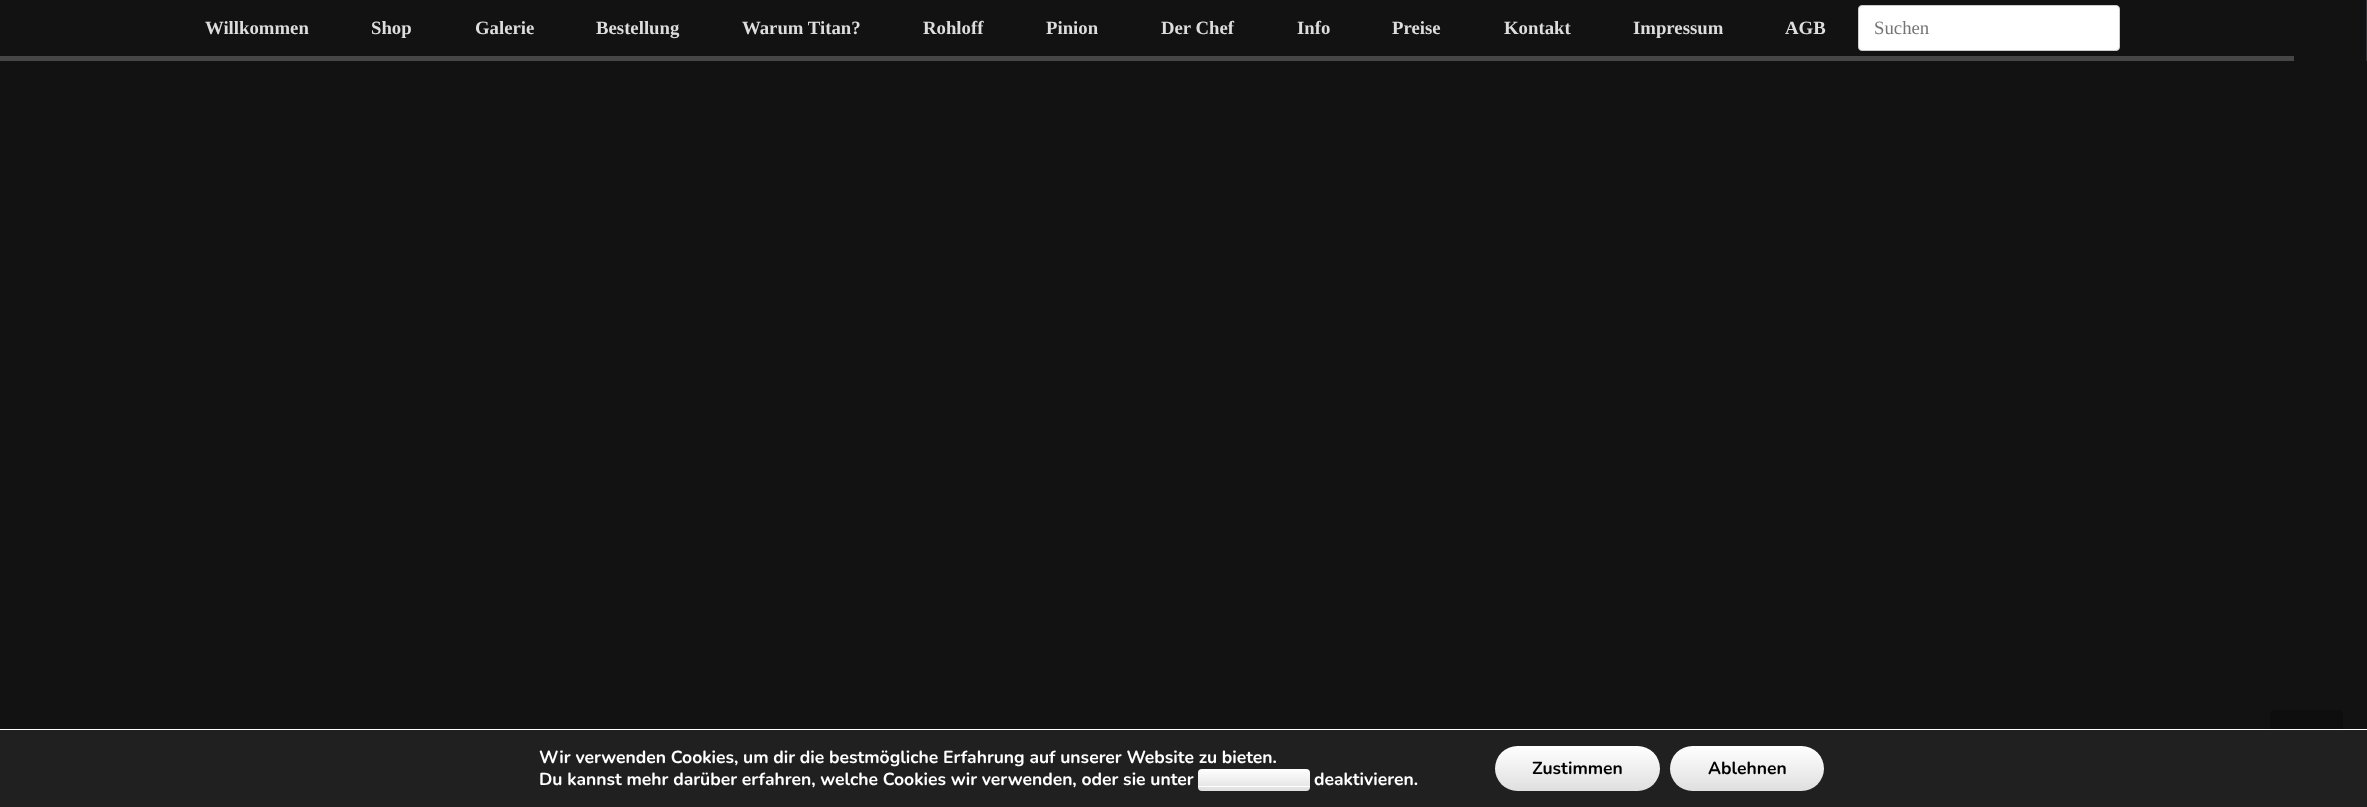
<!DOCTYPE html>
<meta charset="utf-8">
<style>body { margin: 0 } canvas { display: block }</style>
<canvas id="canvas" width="2367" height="807"></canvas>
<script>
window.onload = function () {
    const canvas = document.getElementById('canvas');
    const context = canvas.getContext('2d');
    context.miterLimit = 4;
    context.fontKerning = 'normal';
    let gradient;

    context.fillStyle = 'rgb(18, 18, 18)';
    context.fillRect(0, 0, 2367, 807);
    context.fillStyle = 'rgb(70, 70, 70)';
    context.fillRect(0, 56, 2294, 5);
    context.fillStyle = 'rgb(255, 255, 255)';
    context.beginPath();
    context.roundRect(1858.5, 5.5, 261, 45, 3.5);
    context.fill();
    context.strokeStyle = 'rgb(204, 204, 204)';
    context.stroke();
    context.fillStyle = 'rgb(48, 49, 52)';
    context.fillRect(2366, 0, 1, 61);
    context.fillStyle = 'rgb(14, 14, 14)';
    context.beginPath();
    context.roundRect(2270, 710, 73, 73, 4);
    context.fill();
    context.fillStyle = 'rgb(32, 32, 32)';
    context.fillRect(0, 730, 2367, 77);
    context.fillStyle = 'rgb(255, 255, 255)';
    context.fillRect(0, 729, 2367, 1);
    gradient = context.createLinearGradient(1198, 791, 1198, 769);
    gradient.addColorStop(0, 'rgb(223, 223, 223)');
    gradient.addColorStop(1, 'rgb(255, 255, 255)');
    context.fillStyle = gradient;
    context.beginPath();
    context.roundRect(1198, 769, 112, 22, 4);
    context.fill();
    context.fillStyle = 'rgb(255, 255, 255)';
    context.fillRect(1198, 786, 112, 1);
    gradient = context.createLinearGradient(1495, 791, 1495, 746);
    gradient.addColorStop(0, 'rgb(223, 223, 223)');
    gradient.addColorStop(1, 'rgb(255, 255, 255)');
    context.fillStyle = gradient;
    context.beginPath();
    context.roundRect(1495, 746, 165, 45, 22.5);
    context.fill();
    gradient = context.createLinearGradient(1670, 791, 1670, 746);
    gradient.addColorStop(0, 'rgb(223, 223, 223)');
    gradient.addColorStop(1, 'rgb(255, 255, 255)');
    context.fillStyle = gradient;
    context.beginPath();
    context.roundRect(1670, 746, 154, 45, 22.5);
    context.fill();
    context.font = 'bold 18.75px Liberation Serif';
    context.fillStyle = 'rgb(221, 221, 221)';
    context.fillText('Willkommen', 205, 34);
    context.fillText('Shop', 371, 34);
    context.fillText('Galerie', 475, 34);
    context.fillText('Bestellung', 596, 34);
    context.fillText('Warum Titan?', 742, 34);
    context.fillText('Rohloff', 923, 34);
    context.fillText('Pinion', 1046, 34);
    context.fillText('Der Chef', 1161, 34);
    context.fillText('Info', 1297, 34);
    context.fillText('Preise', 1392, 34);
    context.fillText('Kontakt', 1504, 34);
    context.fillText('Impressum', 1633, 34);
    context.fillText('AGB', 1785, 34);
    context.font = '18.75px Liberation Serif';
    context.fillStyle = 'rgb(117, 117, 117)';
    context.fillText('Suchen', 1874, 34);
    context.font = 'bold 17.5px Nunito';
    context.fillStyle = 'rgb(255, 255, 255)';
    context.fillText('Wir verwenden Cookies, um dir die bestmögliche Erfahrung auf unserer Website zu bieten.', 539, 763);
    context.fillText('Du kannst mehr darüber erfahren, welche Cookies wir verwenden, oder sie unter', 539, 785);
    context.fillText('deaktivieren.', 1314, 785);
    context.fillStyle = 'rgb(0, 0, 0)';
    context.fillText('Zustimmen', 1532, 774);
    context.fillText('Ablehnen', 1708, 774);
};
</script>
